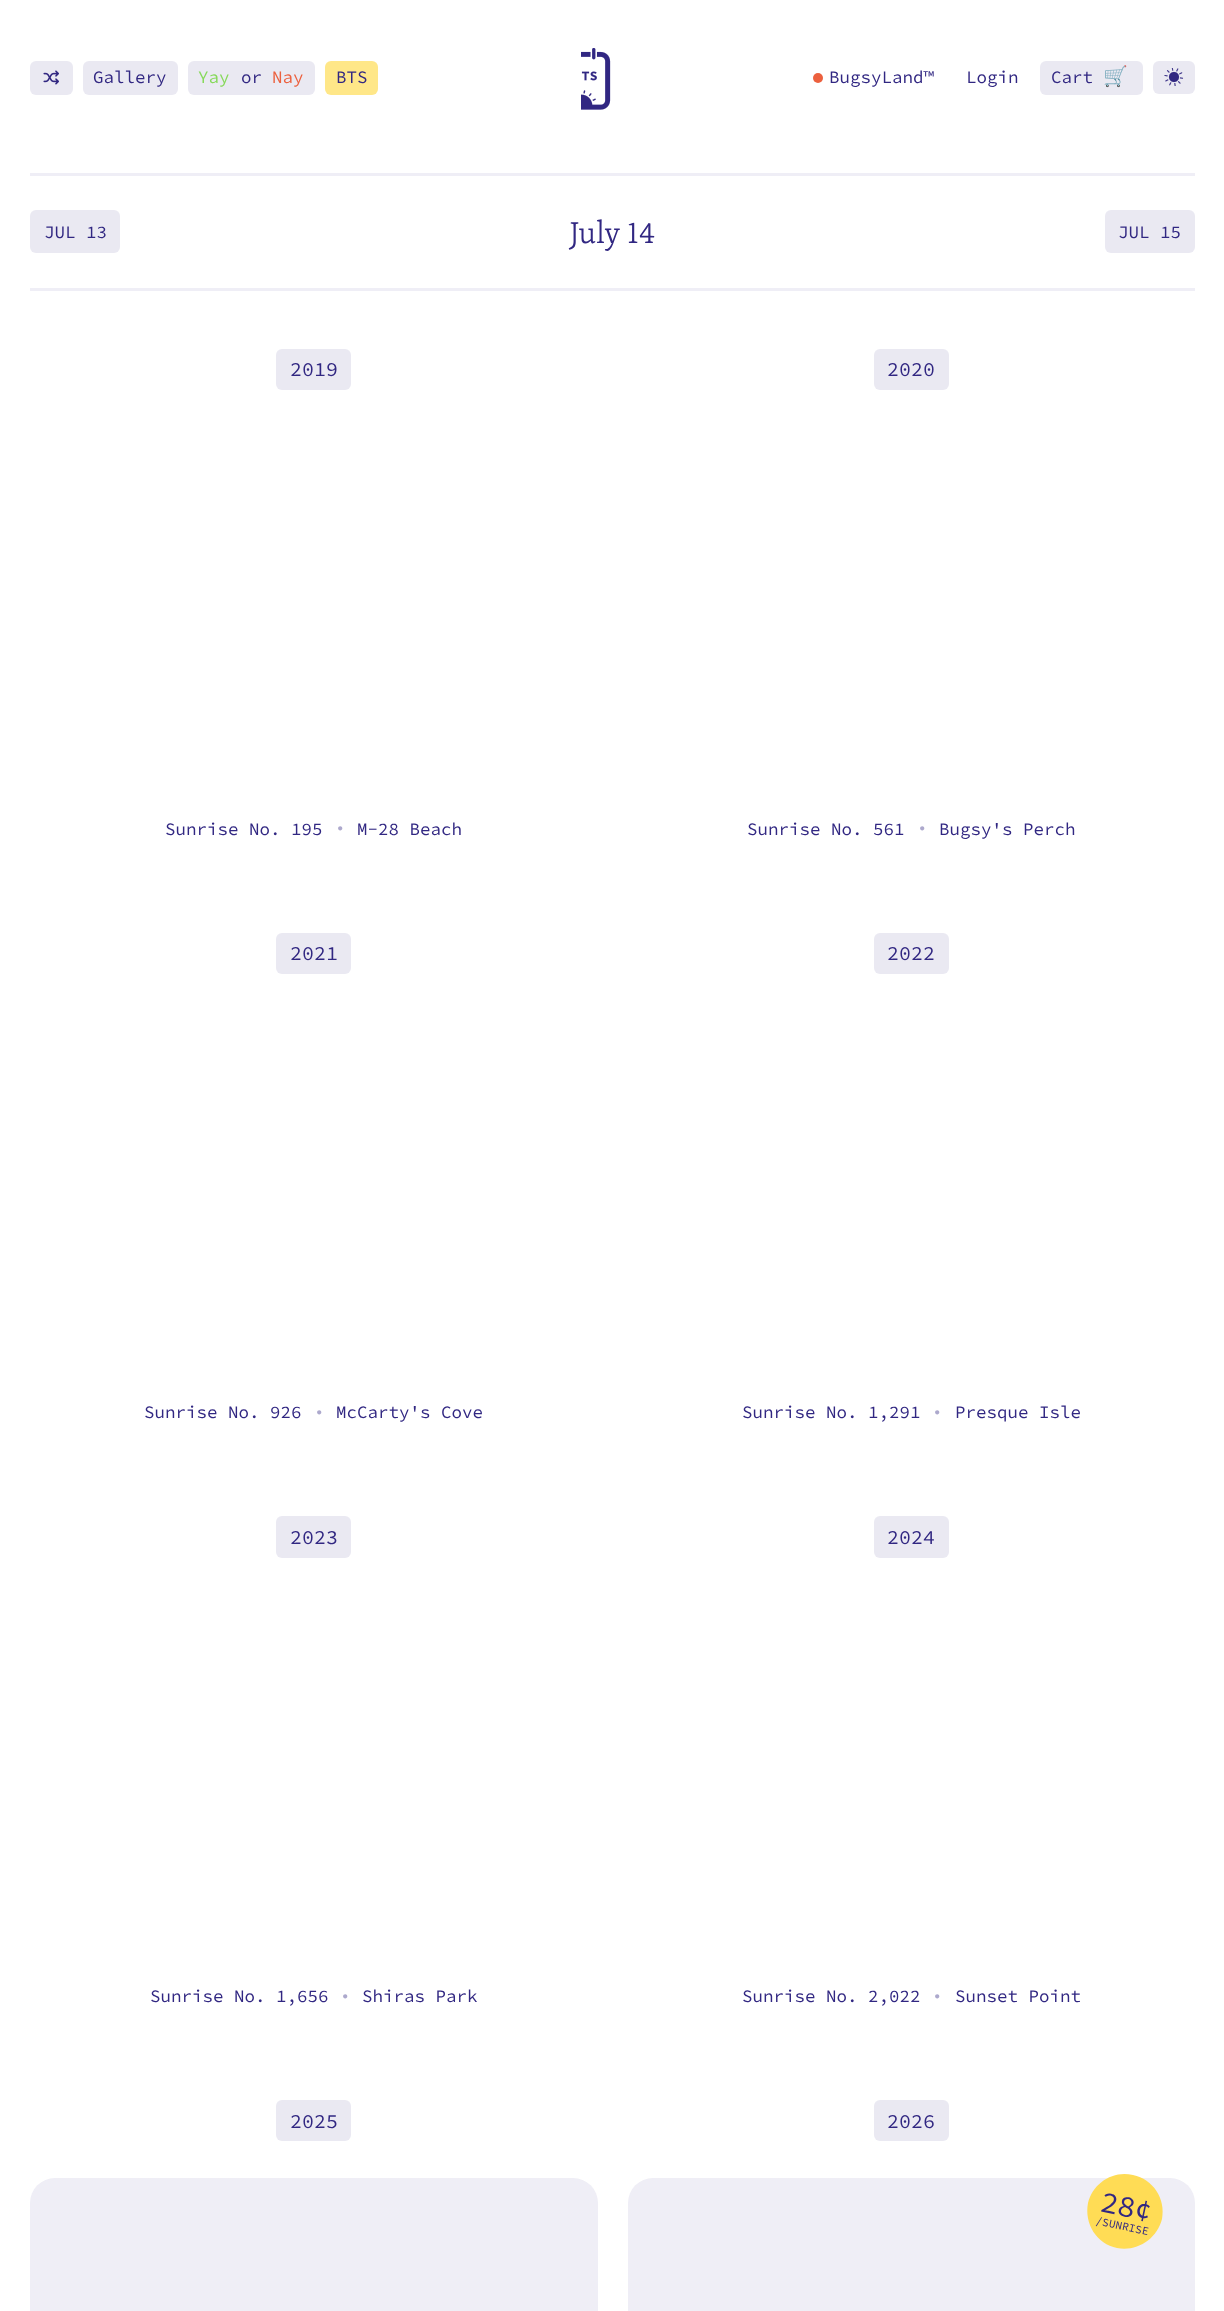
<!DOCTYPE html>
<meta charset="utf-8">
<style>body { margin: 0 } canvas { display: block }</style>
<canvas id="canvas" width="1224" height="2311"></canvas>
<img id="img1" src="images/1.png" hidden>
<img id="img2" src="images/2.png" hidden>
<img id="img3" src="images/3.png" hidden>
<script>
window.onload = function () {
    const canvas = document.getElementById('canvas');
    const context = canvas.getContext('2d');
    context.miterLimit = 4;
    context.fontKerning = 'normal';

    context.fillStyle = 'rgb(255, 255, 255)';
    context.fillRect(0, 0, 1224, 2311);
    context.drawImage(document.getElementById('img1'), 43, 70, 16, 15);
    context.fillStyle = 'rgba(49, 39, 130, 0.1)';
    context.beginPath();
    context.roundRect(30, 61, 43, 34, 6);
    context.fill();
    context.beginPath();
    context.roundRect(83, 61, 95, 34, 6);
    context.fill();
    context.beginPath();
    context.roundRect(188, 61, 127, 34, 6);
    context.fill();
    context.fillStyle = 'rgb(255, 231, 136)';
    context.beginPath();
    context.roundRect(325, 61, 53, 34, 6);
    context.fill();
    context.drawImage(document.getElementById('img2'), 581, 48, 30, 62);
    context.fillStyle = 'rgb(236, 96, 62)';
    context.beginPath();
    context.arc(818, 78, 5, 0, 2 * Math.PI);
    context.fill();
    context.fillStyle = 'rgba(49, 39, 130, 0.1)';
    context.beginPath();
    context.roundRect(1040, 61, 103, 34, 6);
    context.fill();
    context.drawImage(document.getElementById('img3'), 1164, 68, 20, 18);
    context.beginPath();
    context.roundRect(1153, 61, 42, 33, 6);
    context.fill();
    context.fillStyle = 'rgb(239, 238, 246)';
    context.fillRect(30, 173, 1165, 3);
    context.fillStyle = 'rgba(49, 39, 130, 0.1)';
    context.beginPath();
    context.roundRect(30, 210, 90, 43, 6);
    context.fill();
    context.beginPath();
    context.roundRect(1105, 210, 90, 43, 6);
    context.fill();
    context.fillStyle = 'rgb(239, 238, 246)';
    context.fillRect(30, 288, 1165, 3);
    context.fillStyle = 'rgba(49, 39, 130, 0.1)';
    context.beginPath();
    context.roundRect(276, 349, 75, 41, 6);
    context.fill();
    context.beginPath();
    context.roundRect(874, 349, 75, 41, 6);
    context.fill();
    context.beginPath();
    context.roundRect(276, 933, 75, 41, 6);
    context.fill();
    context.beginPath();
    context.roundRect(874, 933, 75, 41, 6);
    context.fill();
    context.beginPath();
    context.roundRect(276, 1516, 75, 42, 6);
    context.fill();
    context.beginPath();
    context.roundRect(874, 1516, 75, 42, 6);
    context.fill();
    context.beginPath();
    context.roundRect(276, 2100, 75, 41, 6);
    context.fill();
    context.fillStyle = 'rgb(239, 238, 246)';
    context.beginPath();
    context.roundRect(30, 2178, 568, 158, 25);
    context.fill();
    context.fillStyle = 'rgba(49, 39, 130, 0.1)';
    context.beginPath();
    context.roundRect(874, 2100, 75, 41, 6);
    context.fill();
    context.fillStyle = 'rgb(239, 238, 246)';
    context.beginPath();
    context.roundRect(628, 2178, 567, 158, 25);
    context.fill();
    context.fillStyle = 'rgb(255, 220, 85)';
    context.beginPath();
    context.moveTo(1133, 2175);
    context.bezierCurveTo(1153, 2179, 1166, 2199, 1162, 2219);
    context.bezierCurveTo(1157, 2239, 1137, 2252, 1117, 2248);
    context.bezierCurveTo(1097, 2244, 1084, 2224, 1088, 2203);
    context.bezierCurveTo(1093, 2183, 1113, 2170, 1133, 2175);
    context.closePath();
    context.fill();
    context.font = '17.5px Source Code Pro';
    context.fillStyle = 'rgb(49, 39, 130)';
    context.fillText('Gallery', 93, 83);
    context.fillStyle = 'rgb(134, 217, 90)';
    context.fillText('Yay', 198, 83);
    context.fillStyle = 'rgb(49, 39, 130)';
    context.fillText('or', 241, 83);
    context.fillStyle = 'rgb(236, 96, 62)';
    context.fillText('Nay', 272, 83);
    context.fillStyle = 'rgb(49, 39, 130)';
    context.fillText('BTS', 336, 83);
    context.fillText('BugsyLand™', 829, 83);
    context.fillText('Login', 966, 83);
    context.fillText('Cart', 1051, 83);
    context.letterSpacing = '4px';
    context.font = '20px Noto Color Emoji';
    context.fillText('🛒', 1103, 83);
    context.letterSpacing = '0px';
    context.font = '17.5px Source Code Pro';
    context.fillText('JUL 13', 44, 238);
    context.font = '300 31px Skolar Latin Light';
    context.fillText('July 14', 570, 243);
    context.font = '17.5px Source Code Pro';
    context.fillText('JUL 15', 1118, 238);
    context.font = '20px Source Code Pro';
    context.fillText('2019', 290, 376);
    context.font = '17.5px Source Code Pro';
    context.fillText('Sunrise No. 195', 165, 835);
    context.font = '14px Source Code Pro';
    context.fillStyle = 'rgb(173, 169, 205)';
    context.fillText('•', 336, 832);
    context.font = '17.5px Source Code Pro';
    context.fillStyle = 'rgb(49, 39, 130)';
    context.fillText('M-28 Beach', 357, 835);
    context.font = '20px Source Code Pro';
    context.fillText('2020', 887, 376);
    context.font = '17.5px Source Code Pro';
    context.fillText('Sunrise No. 561', 747, 835);
    context.font = '14px Source Code Pro';
    context.fillStyle = 'rgb(173, 169, 205)';
    context.fillText('•', 918, 832);
    context.font = '17.5px Source Code Pro';
    context.fillStyle = 'rgb(49, 39, 130)';
    context.fillText('Bugsy\'s Perch', 939, 835);
    context.font = '20px Source Code Pro';
    context.fillText('2021', 290, 960);
    context.font = '17.5px Source Code Pro';
    context.fillText('Sunrise No. 926', 144, 1418);
    context.font = '14px Source Code Pro';
    context.fillStyle = 'rgb(173, 169, 205)';
    context.fillText('•', 315, 1416);
    context.font = '17.5px Source Code Pro';
    context.fillStyle = 'rgb(49, 39, 130)';
    context.fillText('McCarty\'s Cove', 336, 1418);
    context.font = '20px Source Code Pro';
    context.fillText('2022', 887, 960);
    context.font = '17.5px Source Code Pro';
    context.fillText('Sunrise No. 1,291', 742, 1418);
    context.font = '14px Source Code Pro';
    context.fillStyle = 'rgb(173, 169, 205)';
    context.fillText('•', 933, 1416);
    context.font = '17.5px Source Code Pro';
    context.fillStyle = 'rgb(49, 39, 130)';
    context.fillText('Presque Isle', 955, 1418);
    context.font = '20px Source Code Pro';
    context.fillText('2023', 290, 1544);
    context.font = '17.5px Source Code Pro';
    context.fillText('Sunrise No. 1,656', 150, 2002);
    context.font = '14px Source Code Pro';
    context.fillStyle = 'rgb(173, 169, 205)';
    context.fillText('•', 341, 2000);
    context.font = '17.5px Source Code Pro';
    context.fillStyle = 'rgb(49, 39, 130)';
    context.fillText('Shiras Park', 362, 2002);
    context.font = '20px Source Code Pro';
    context.fillText('2024', 887, 1544);
    context.font = '17.5px Source Code Pro';
    context.fillText('Sunrise No. 2,022', 742, 2002);
    context.font = '14px Source Code Pro';
    context.fillStyle = 'rgb(173, 169, 205)';
    context.fillText('•', 933, 2000);
    context.font = '17.5px Source Code Pro';
    context.fillStyle = 'rgb(49, 39, 130)';
    context.fillText('Sunset Point', 955, 2002);
    context.font = '20px Source Code Pro';
    context.fillText('2025', 290, 2128);
    context.fillText('2026', 887, 2128);
    context.letterSpacing = '-1px';
    context.font = '30px Source Code Pro';
    context.save();
    context.translate(1099, 2211);
    context.rotate(12 * Math.PI / 180);
    context.fillText('28¢', 0, 0);
    context.restore();
    context.letterSpacing = '0px';
    context.font = '11.25px Source Code Pro';
    context.save();
    context.translate(1095, 2224);
    context.rotate(12 * Math.PI / 180);
    context.fillText('/SUNRISE', 0, 0);
    context.restore();
};
</script>
